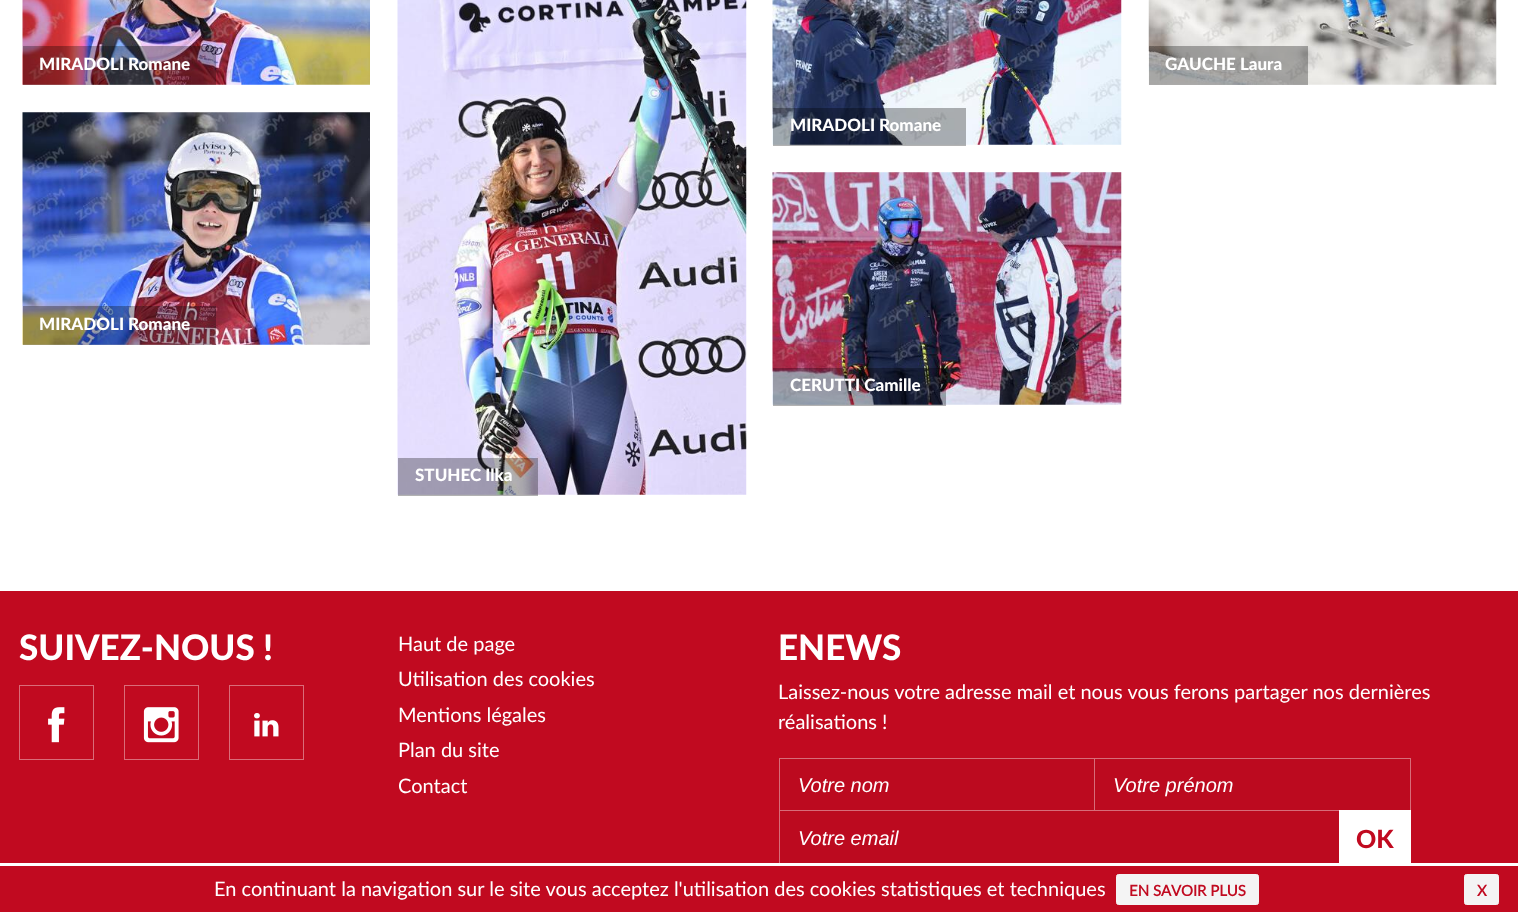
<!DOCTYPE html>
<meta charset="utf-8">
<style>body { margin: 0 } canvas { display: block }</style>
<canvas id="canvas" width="1518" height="912"></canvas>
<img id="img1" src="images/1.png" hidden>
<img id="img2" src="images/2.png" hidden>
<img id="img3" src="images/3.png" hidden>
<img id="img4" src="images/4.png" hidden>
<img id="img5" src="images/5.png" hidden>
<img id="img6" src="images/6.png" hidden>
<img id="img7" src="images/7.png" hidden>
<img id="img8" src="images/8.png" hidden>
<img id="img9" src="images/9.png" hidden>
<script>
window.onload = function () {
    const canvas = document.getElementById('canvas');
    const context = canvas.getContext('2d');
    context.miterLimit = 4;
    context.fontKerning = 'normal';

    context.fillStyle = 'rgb(255, 255, 255)';
    context.fillRect(0, 0, 1518, 912);
    context.drawImage(document.getElementById('img1'), 22, 0, 348, 85);
    context.fillStyle = 'rgba(0, 0, 0, 0.3)';
    context.fillRect(23, 46, 193, 39);
    context.drawImage(document.getElementById('img2'), 1148, 0, 349, 85);
    context.fillRect(1149, 46, 159, 39);
    context.drawImage(document.getElementById('img3'), 772, 0, 350, 145);
    context.fillRect(773, 108, 193, 38);
    context.drawImage(document.getElementById('img4'), 22, 112, 348, 233);
    context.fillRect(23, 306, 193, 39);
    context.drawImage(document.getElementById('img5'), 772, 172, 350, 233);
    context.fillRect(773, 368, 173, 38);
    context.drawImage(document.getElementById('img6'), 397, 0, 350, 495);
    context.fillRect(398, 458, 140, 38);
    context.fillStyle = 'rgb(193, 10, 32)';
    context.fillRect(0, 591, 1518, 272);
    context.strokeStyle = 'rgb(218, 108, 121)';
    context.strokeRect(19.5, 685.5, 74, 74);
    context.drawImage(document.getElementById('img7'), 48, 707, 17, 36);
    context.strokeRect(124.5, 685.5, 74, 74);
    context.drawImage(document.getElementById('img8'), 143, 707, 36, 36);
    context.strokeRect(229.5, 685.5, 74, 74);
    context.drawImage(document.getElementById('img9'), 254, 713, 25, 24);
    context.fillStyle = 'rgb(188, 10, 31)';
    context.fillRect(780, 759, 314, 51);
    context.strokeStyle = 'rgb(215, 108, 121)';
    context.strokeRect(779.5, 758.5, 316, 55);
    context.fillRect(1095, 759, 315, 51);
    context.strokeRect(1094.5, 758.5, 316, 55);
    context.fillRect(780, 811, 559, 52);
    context.strokeRect(779.5, 810.5, 561, 55);
    context.fillStyle = 'rgb(255, 255, 255)';
    context.fillRect(1339, 810, 72, 53);
    context.fillStyle = 'rgb(193, 10, 32)';
    context.fillRect(0, 866, 1518, 46);
    context.fillStyle = 'rgb(255, 255, 255)';
    context.fillRect(779, 863, 562, 3);
    context.fillStyle = 'rgb(244, 244, 244)';
    context.beginPath();
    context.roundRect(1116.5, 874.5, 142, 30, 2);
    context.fill();
    context.strokeStyle = 'rgb(244, 244, 244)';
    context.stroke();
    context.beginPath();
    context.roundRect(1464.5, 874.5, 34, 30, 2);
    context.fill();
    context.stroke();
    context.font = '900 17px Lato';
    context.fillStyle = 'rgb(255, 255, 255)';
    context.fillText('MIRADOLI Romane', 39, 70);
    context.fillText('GAUCHE Laura', 1165, 70);
    context.fillText('MIRADOLI Romane', 790, 131);
    context.fillText('MIRADOLI Romane', 39, 330);
    context.fillText('CERUTTI Camille', 790, 391);
    context.fillText('STUHEC Ilka', 415, 481);
    context.font = '900 35px Lato';
    context.fillText('SUIVEZ-NOUS !', 19, 660);
    context.font = '20px Lato';
    context.fillText('Haut de page', 398, 651);
    context.fillText('Utilisation des cookies', 398, 686);
    context.fillText('Mentions légales', 398, 722);
    context.fillText('Plan du site', 398, 757);
    context.fillText('Contact', 398, 793);
    context.font = '900 35px Lato';
    context.fillText('ENEWS', 778, 660);
    context.font = '20px Lato';
    context.fillText('Laissez-nous votre adresse mail et nous vous ferons partager nos dernières', 778, 699);
    context.fillText('réalisations !', 778, 729);
    context.font = 'italic 20px Liberation Sans';
    context.fillText('Votre nom', 798, 792);
    context.fillText('Votre prénom', 1113, 792);
    context.fillText('Votre email', 798, 845);
    context.font = '900 25px Lato';
    context.fillStyle = 'rgb(193, 10, 32)';
    context.fillText('OK', 1356, 848);
    context.font = '20px Lato';
    context.fillStyle = 'rgb(255, 255, 255)';
    context.fillText('En continuant la navigation sur le site vous acceptez l\'utilisation des cookies statistiques et techniques', 214, 896);
    context.font = 'bold 15px Lato';
    context.fillStyle = 'rgb(193, 10, 32)';
    context.fillText('EN SAVOIR PLUS', 1129, 896);
    context.fillText('X', 1477, 896);
};
</script>
